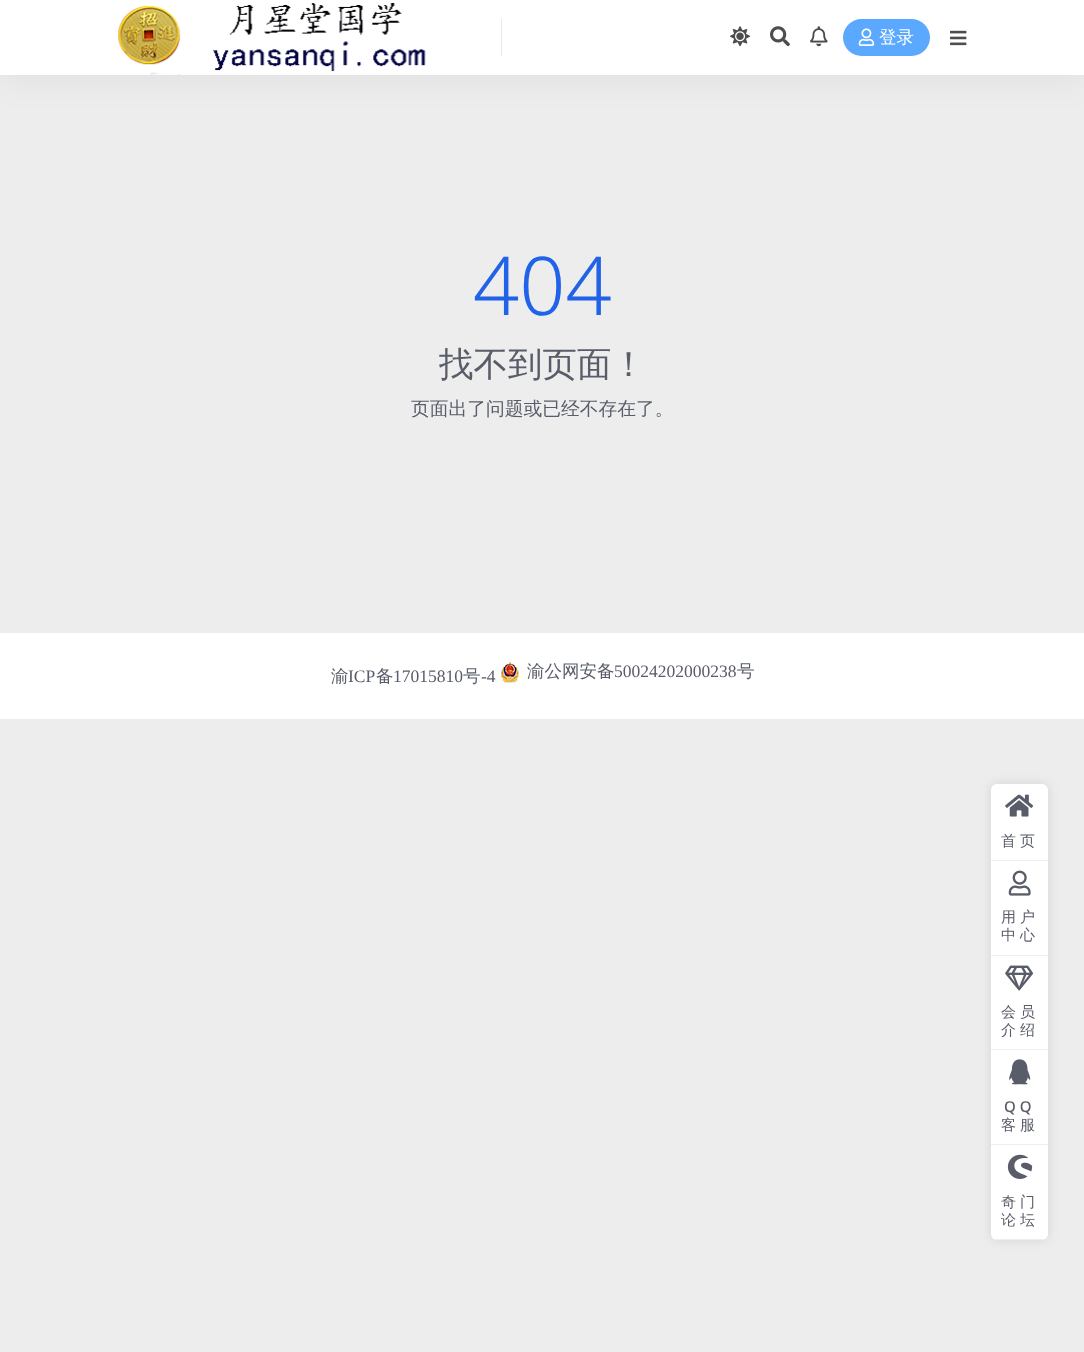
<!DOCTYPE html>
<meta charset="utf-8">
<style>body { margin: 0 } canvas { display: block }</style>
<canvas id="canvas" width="1084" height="1352"></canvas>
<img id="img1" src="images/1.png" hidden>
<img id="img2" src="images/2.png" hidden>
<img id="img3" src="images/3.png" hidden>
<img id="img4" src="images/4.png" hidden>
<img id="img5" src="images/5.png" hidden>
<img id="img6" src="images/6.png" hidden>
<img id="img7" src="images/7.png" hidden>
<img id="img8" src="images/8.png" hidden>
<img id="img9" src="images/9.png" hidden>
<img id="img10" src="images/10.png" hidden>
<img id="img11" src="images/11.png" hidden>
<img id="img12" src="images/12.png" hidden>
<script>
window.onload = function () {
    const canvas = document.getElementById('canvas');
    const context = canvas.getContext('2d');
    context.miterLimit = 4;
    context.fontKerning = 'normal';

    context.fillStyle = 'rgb(237, 237, 237)';
    context.fillRect(0, 0, 1084, 1352);
    context.fillStyle = 'rgba(0, 0, 0, 0.07)';
    context.filter = 'blur(19px)';
    context.beginPath();
    context.rect(0, 0, 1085, 75);
    context.fill();
    context.filter = 'none';
    context.fillStyle = 'rgb(255, 255, 255)';
    context.fillRect(0, 0, 1084, 75);
    context.drawImage(document.getElementById('img1'), 118, 3, 308, 72);
    context.fillStyle = 'rgb(232, 232, 233)';
    context.fillRect(501, 19, 1, 37);
    context.drawImage(document.getElementById('img2'), 730, 26, 20, 21);
    context.drawImage(document.getElementById('img3'), 770, 26, 20, 21);
    context.drawImage(document.getElementById('img4'), 810, 26, 18, 21);
    context.fillStyle = 'rgb(91, 168, 255)';
    context.beginPath();
    context.roundRect(843, 19, 87, 37, 18.5);
    context.fill();
    context.drawImage(document.getElementById('img5'), 858, 28, 17, 18);
    context.drawImage(document.getElementById('img6'), 950, 30, 17, 16);
    context.fillStyle = 'rgb(255, 255, 255)';
    context.fillRect(0, 633, 1084, 86);
    context.drawImage(document.getElementById('img7'), 501, 662, 18, 21);
    context.fillStyle = 'rgba(0, 0, 0, 0.1)';
    context.filter = 'blur(6px)';
    context.beginPath();
    context.roundRect(991, 784, 57, 456, 6);
    context.fill();
    context.filter = 'none';
    context.fillStyle = 'rgb(255, 255, 255)';
    context.beginPath();
    context.roundRect(991, 784, 57, 77, [6, 6, 0, 0]);
    context.fill();
    context.fillStyle = 'rgb(238, 238, 238)';
    context.fillRect(991, 860, 57, 1);
    context.drawImage(document.getElementById('img8'), 1005, 794, 29, 23);
    context.fillStyle = 'rgb(255, 255, 255)';
    context.fillRect(991, 861, 57, 94);
    context.fillStyle = 'rgb(238, 238, 238)';
    context.fillRect(991, 955, 57, 1);
    context.drawImage(document.getElementById('img9'), 1008, 870, 23, 26);
    context.fillStyle = 'rgb(255, 255, 255)';
    context.fillRect(991, 956, 57, 93);
    context.fillStyle = 'rgb(238, 238, 238)';
    context.fillRect(991, 1049, 57, 1);
    context.drawImage(document.getElementById('img10'), 1005, 965, 29, 26);
    context.fillStyle = 'rgb(255, 255, 255)';
    context.fillRect(991, 1050, 57, 94);
    context.fillStyle = 'rgb(238, 238, 238)';
    context.fillRect(991, 1144, 57, 1);
    context.drawImage(document.getElementById('img11'), 1009, 1059, 22, 26);
    context.fillStyle = 'rgb(255, 255, 255)';
    context.beginPath();
    context.roundRect(991, 1145, 57, 95, [0, 0, 6, 6]);
    context.fill();
    context.save();
    context.beginPath();
    context.roundRect(991, 784, 57, 456, 6);
    context.clip();
    context.fillStyle = 'rgb(238, 238, 238)';
    context.fillRect(991, 1239, 57, 1);
    context.restore();
    context.drawImage(document.getElementById('img12'), 1007, 1154, 26, 25);
    context.font = '500 17.5px WenQuanYi Zen Hei';
    context.fillText('登录', 879, 43);
    context.font = '300 81px Noto Sans';
    context.fillStyle = 'rgb(33, 99, 232)';
    context.fillText('404', 473, 315);
    context.font = '500 34.5px WenQuanYi Zen Hei';
    context.fillStyle = 'rgb(89, 93, 105)';
    context.fillText('找不到页面！', 439, 376);
    context.font = '500 18.75px WenQuanYi Zen Hei';
    context.fillText('页面出了问题或已经不存在了。', 411, 415);
    context.font = '500 17.5px WenQuanYi Zen Hei';
    context.fillText('渝', 331, 682);
    context.font = '17.5px Liberation Serif';
    context.fillText('ICP', 348, 682);
    context.font = '500 17.5px WenQuanYi Zen Hei';
    context.fillText('备', 376, 682);
    context.font = '17.5px Liberation Serif';
    context.fillText('17015810', 393, 682);
    context.font = '500 17.5px WenQuanYi Zen Hei';
    context.fillText('号', 463, 682);
    context.font = '17.5px Liberation Serif';
    context.fillText('-4', 481, 682);
    context.font = '500 17.5px WenQuanYi Zen Hei';
    context.fillText('渝公网安备', 527, 677);
    context.font = '17.5px Liberation Serif';
    context.fillText('50024202000238', 614, 677);
    context.font = '500 17.5px WenQuanYi Zen Hei';
    context.fillText('号', 737, 677);
    context.letterSpacing = '4px';
    context.font = '500 15px WenQuanYi Zen Hei';
    context.fillText('首页', 1001, 846);
    context.fillText('用户', 1001, 922);
    context.fillText('中心', 1001, 940);
    context.fillText('会员', 1001, 1017);
    context.fillText('介绍', 1001, 1035);
    context.font = '500 15px Noto Sans';
    context.fillText('QQ', 1004, 1112);
    context.font = '500 15px WenQuanYi Zen Hei';
    context.fillText('客服', 1001, 1130);
    context.fillText('奇门', 1001, 1207);
    context.fillText('论坛', 1001, 1225);
};
</script>
